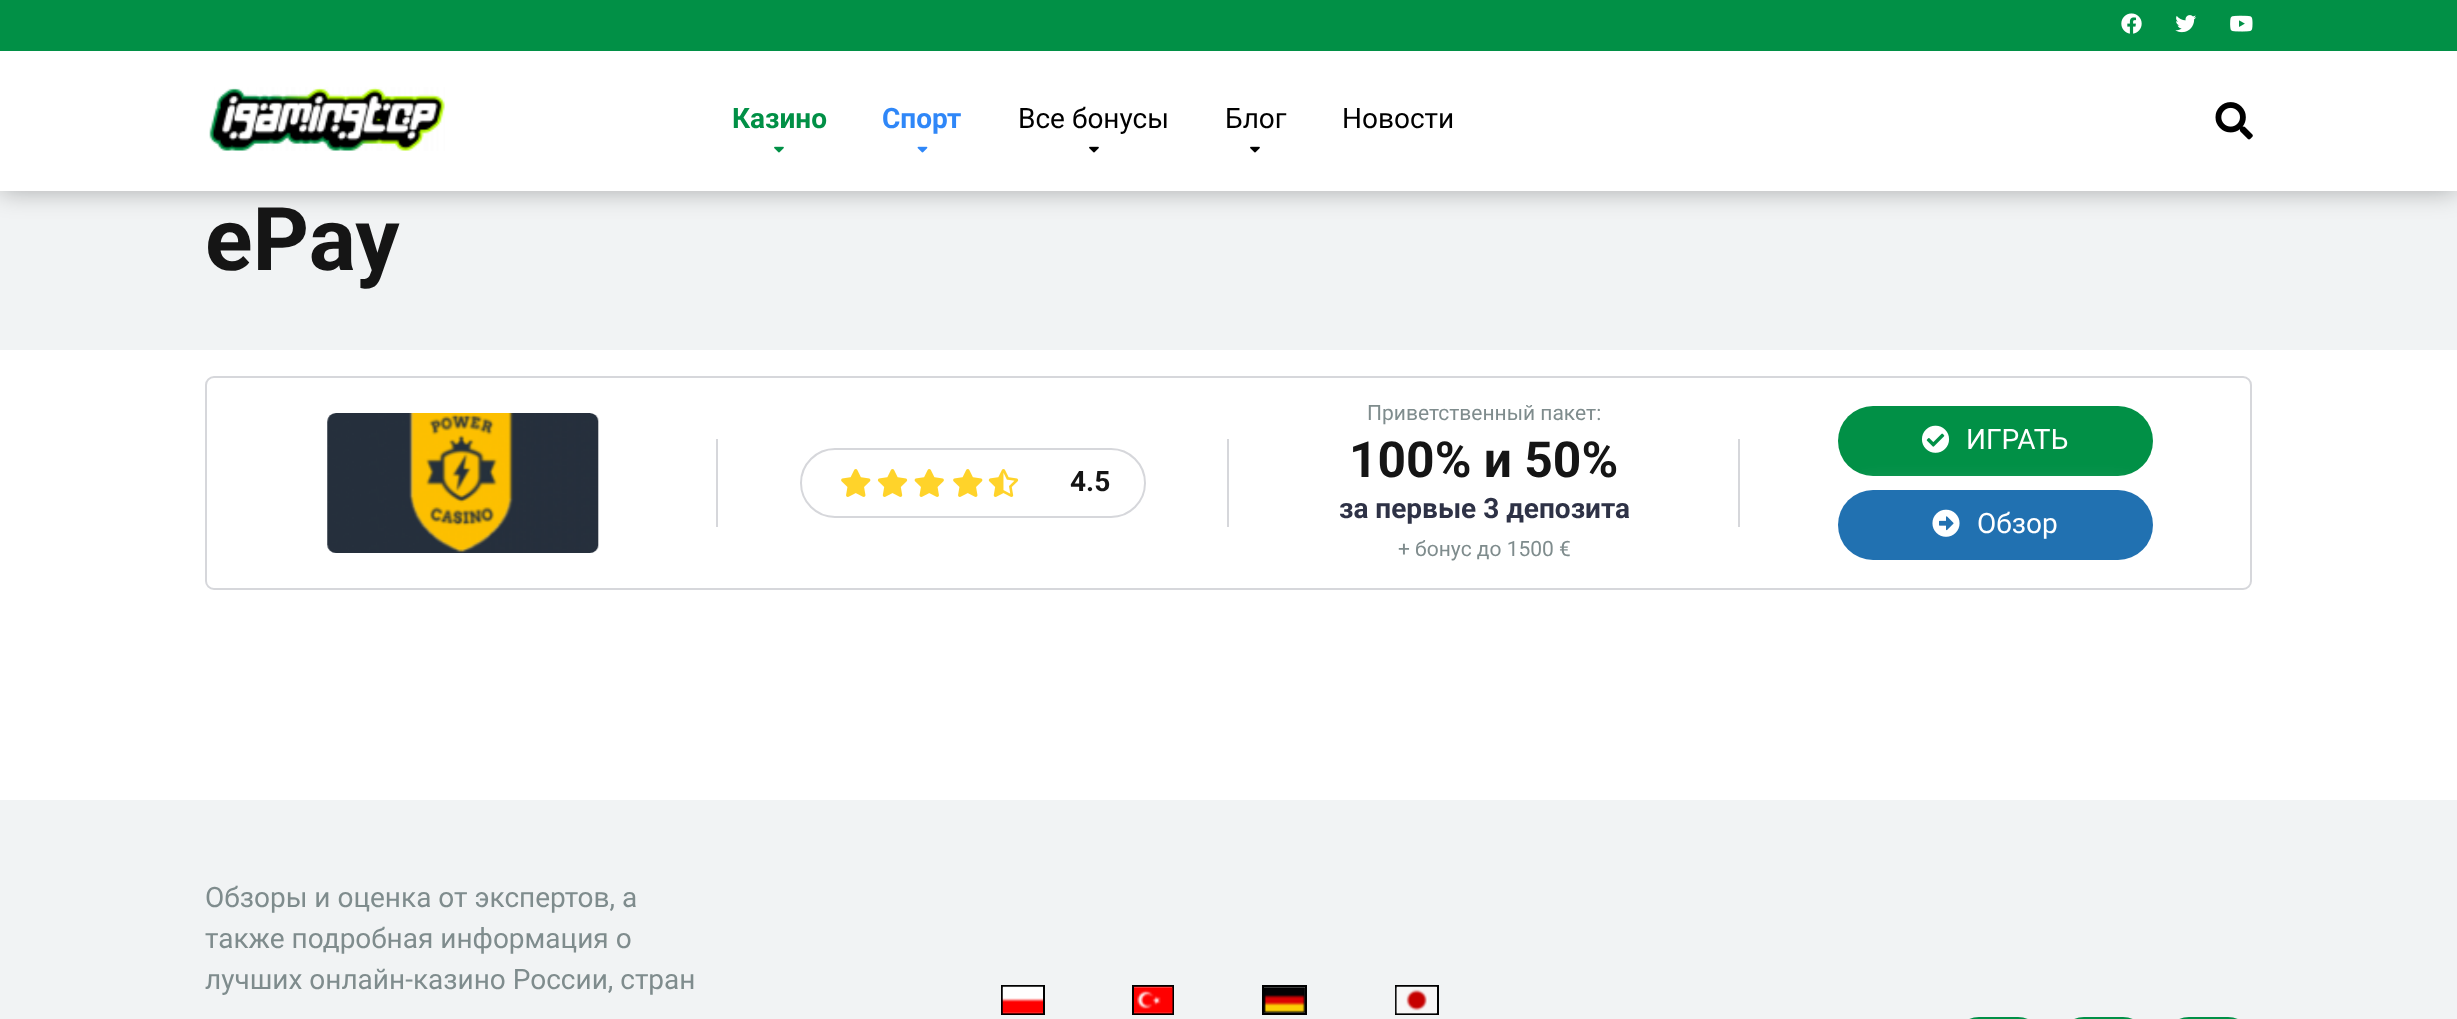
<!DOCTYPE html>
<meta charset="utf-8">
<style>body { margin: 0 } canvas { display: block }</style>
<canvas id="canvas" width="2457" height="1019"></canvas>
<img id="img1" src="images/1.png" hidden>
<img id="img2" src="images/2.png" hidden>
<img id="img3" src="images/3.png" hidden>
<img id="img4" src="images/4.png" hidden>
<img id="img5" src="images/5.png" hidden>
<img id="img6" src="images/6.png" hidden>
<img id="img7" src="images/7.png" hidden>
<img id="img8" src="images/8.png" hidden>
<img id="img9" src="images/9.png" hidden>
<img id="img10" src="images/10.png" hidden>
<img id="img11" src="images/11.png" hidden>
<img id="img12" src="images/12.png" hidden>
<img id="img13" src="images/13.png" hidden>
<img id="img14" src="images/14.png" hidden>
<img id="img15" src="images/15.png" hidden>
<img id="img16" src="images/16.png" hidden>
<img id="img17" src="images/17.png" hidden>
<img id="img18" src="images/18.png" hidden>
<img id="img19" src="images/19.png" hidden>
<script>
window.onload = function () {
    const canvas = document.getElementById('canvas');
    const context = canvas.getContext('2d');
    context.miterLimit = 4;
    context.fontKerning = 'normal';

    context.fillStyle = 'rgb(255, 255, 255)';
    context.fillRect(0, 0, 2457, 1019);
    context.fillStyle = 'rgb(241, 243, 244)';
    context.fillRect(0, 191, 2457, 159);
    context.fillStyle = 'rgba(0, 0, 0, 0.3)';
    context.filter = 'blur(13px)';
    context.beginPath();
    context.rect(0, 0, 2457, 191);
    context.fill();
    context.filter = 'none';
    context.fillStyle = 'rgb(255, 255, 255)';
    context.fillRect(0, 51, 2457, 140);
    context.fillStyle = 'rgb(1, 144, 70)';
    context.fillRect(0, 0, 2457, 51);
    context.drawImage(document.getElementById('img1'), 2121, 13, 21, 21);
    context.drawImage(document.getElementById('img2'), 2175, 15, 22, 18);
    context.drawImage(document.getElementById('img3'), 2230, 15, 23, 17);
    context.drawImage(document.getElementById('img4'), 209, 87, 236, 64);
    context.drawImage(document.getElementById('img5'), 774, 146, 10, 7);
    context.drawImage(document.getElementById('img6'), 917, 146, 11, 7);
    context.drawImage(document.getElementById('img7'), 1089, 146, 10, 7);
    context.drawImage(document.getElementById('img7'), 1250, 146, 10, 7);
    context.drawImage(document.getElementById('img8'), 2215, 102, 38, 38);
    context.beginPath();
    context.roundRect(206, 377, 2045, 212, 8);
    context.strokeStyle = 'rgb(214, 215, 219)';
    context.lineWidth = 2;
    context.stroke();
    context.drawImage(document.getElementById('img9'), 327, 413, 272, 140);
    context.fillStyle = 'rgb(214, 215, 219)';
    context.fillRect(716, 439, 2, 88);
    context.beginPath();
    context.roundRect(801, 449, 344, 68, 34);
    context.stroke();
    context.drawImage(document.getElementById('img10'), 841, 469, 30, 28);
    context.drawImage(document.getElementById('img11'), 877, 469, 31, 28);
    context.drawImage(document.getElementById('img12'), 914, 469, 30, 28);
    context.drawImage(document.getElementById('img10'), 953, 469, 30, 28);
    context.drawImage(document.getElementById('img13'), 988, 469, 31, 28);
    context.fillRect(1227, 439, 2, 88);
    context.fillRect(1738, 439, 2, 88);
    context.fillStyle = 'rgb(1, 144, 70)';
    context.beginPath();
    context.roundRect(1838, 406, 315, 70, 35);
    context.fill();
    context.drawImage(document.getElementById('img14'), 1921, 425, 29, 28);
    context.fillStyle = 'rgba(255, 255, 255, 0.35)';
    context.filter = 'blur(13px)';
    context.beginPath();
    context.roundRect(1838, 490, 315, 70, 35);
    context.fill();
    context.filter = 'none';
    context.fillStyle = 'rgb(33, 113, 177)';
    context.beginPath();
    context.roundRect(1838, 490, 315, 70, 35);
    context.fill();
    context.drawImage(document.getElementById('img15'), 1932, 509, 28, 28);
    context.fillStyle = 'rgb(241, 243, 244)';
    context.fillRect(0, 800, 2457, 219);
    context.strokeStyle = 'rgb(0, 0, 0)';
    context.strokeRect(1002, 986, 42, 28);
    context.drawImage(document.getElementById('img16'), 1002, 986, 41, 28);
    context.strokeRect(1133, 986, 40, 28);
    context.drawImage(document.getElementById('img17'), 1134, 986, 39, 28);
    context.strokeRect(1263, 986, 43, 28);
    context.drawImage(document.getElementById('img18'), 1264, 987, 41, 26);
    context.strokeRect(1396, 986, 42, 28);
    context.drawImage(document.getElementById('img19'), 1395, 986, 42, 28);
    context.beginPath();
    context.roundRect(1956, 1018, 85, 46, 42.5);
    context.strokeStyle = 'rgb(1, 144, 70)';
    context.stroke();
    context.beginPath();
    context.roundRect(2061, 1018, 85, 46, 42.5);
    context.stroke();
    context.beginPath();
    context.roundRect(2166, 1018, 85, 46, 42.5);
    context.stroke();
    context.font = 'bold 28px Roboto';
    context.fillStyle = 'rgb(1, 144, 70)';
    context.fillText('Казино', 732, 128);
    context.fillStyle = 'rgb(47, 135, 248)';
    context.fillText('Спорт', 882, 128);
    context.font = '28px Roboto';
    context.fillStyle = 'rgb(0, 0, 0)';
    context.fillText('Все бонусы', 1018, 128);
    context.fillText('Блог', 1225, 128);
    context.fillText('Новости', 1342, 128);
    context.font = 'bold 88px Roboto';
    context.fillStyle = 'rgb(21, 21, 21)';
    context.fillText('ePay', 205, 270);
    context.font = 'bold 28px Roboto';
    context.fillText('4.5', 1070, 491);
    context.font = '21px Roboto';
    context.fillStyle = 'rgb(127, 140, 141)';
    context.fillText('Приветственный пакет:', 1367, 420);
    context.font = 'bold 49.75px Roboto';
    context.fillStyle = 'rgb(21, 21, 21)';
    context.fillText('100% и 50%', 1349, 477);
    context.font = 'bold 28px Roboto';
    context.fillStyle = 'rgb(46, 50, 70)';
    context.fillText('за первые 3 депозита', 1339, 518);
    context.font = '21px Roboto';
    context.fillStyle = 'rgb(127, 140, 141)';
    context.fillText('+ бонус до 1500 €', 1398, 556);
    context.font = '28px Roboto';
    context.fillStyle = 'rgb(255, 255, 255)';
    context.fillText('ИГРАТЬ', 1966, 449);
    context.fillText('Обзор', 1977, 533);
    context.fillStyle = 'rgb(127, 140, 141)';
    context.fillText('Обзоры и оценка от экспертов, а', 205, 907);
    context.fillText('также подробная информация о', 205, 948);
    context.fillText('лучших онлайн-казино России, стран', 205, 989);
};
</script>
